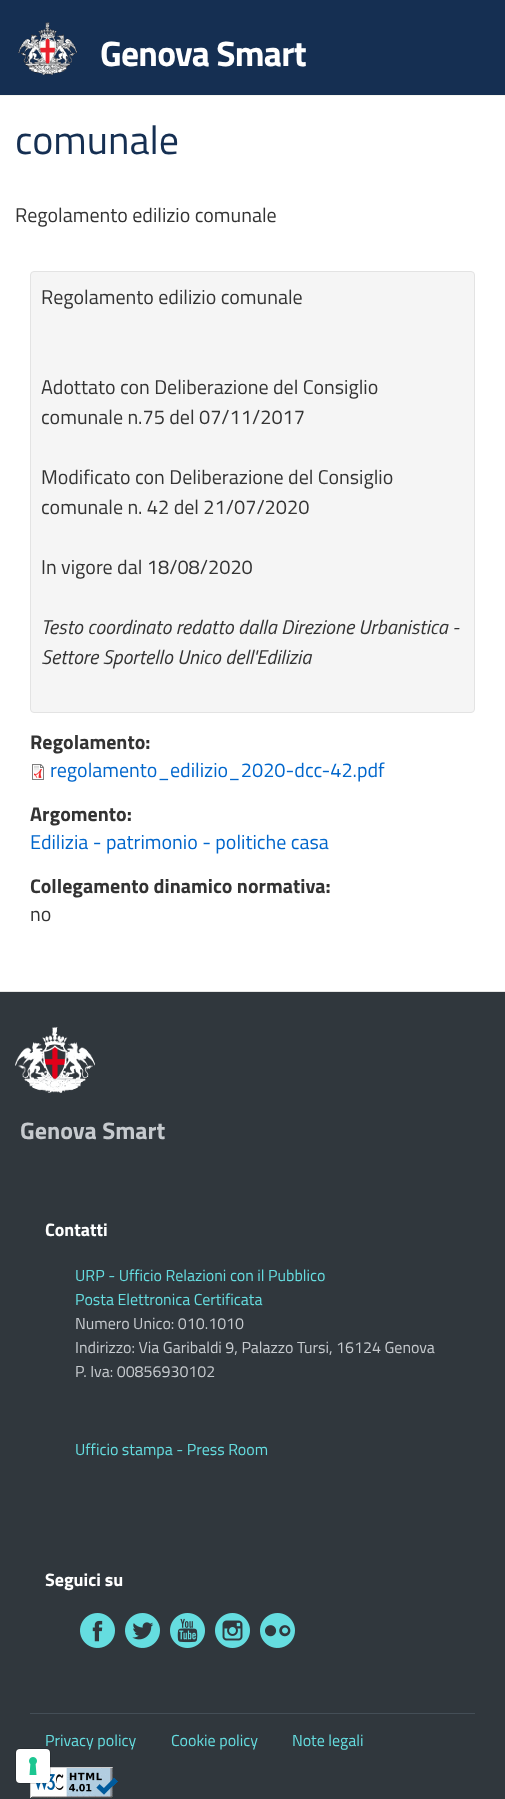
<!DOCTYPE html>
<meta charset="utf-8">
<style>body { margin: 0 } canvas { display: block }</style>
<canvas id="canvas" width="505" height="1799"></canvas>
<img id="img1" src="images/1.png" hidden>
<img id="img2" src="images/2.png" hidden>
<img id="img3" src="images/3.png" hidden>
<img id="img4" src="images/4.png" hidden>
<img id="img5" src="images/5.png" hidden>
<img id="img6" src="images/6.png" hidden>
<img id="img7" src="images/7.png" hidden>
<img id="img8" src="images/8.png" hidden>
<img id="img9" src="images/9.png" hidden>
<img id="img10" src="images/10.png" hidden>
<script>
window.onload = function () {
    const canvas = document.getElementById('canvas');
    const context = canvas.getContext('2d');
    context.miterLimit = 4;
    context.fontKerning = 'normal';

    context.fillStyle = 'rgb(255, 255, 255)';
    context.fillRect(0, 0, 505, 1799);
    context.fillStyle = 'rgb(21, 47, 82)';
    context.fillRect(0, 0, 505, 95);
    context.drawImage(document.getElementById('img1'), 18, 22, 60, 53);
    context.fillStyle = 'rgb(244, 245, 240)';
    context.fillRect(0, 95, 505, 1);
    context.fillStyle = 'rgb(245, 245, 245)';
    context.beginPath();
    context.roundRect(30.5, 271.5, 444, 441, 3.5);
    context.fill();
    context.strokeStyle = 'rgb(227, 227, 227)';
    context.stroke();
    context.drawImage(document.getElementById('img2'), 32, 764, 12, 16);
    context.fillStyle = 'rgb(48, 55, 61)';
    context.fillRect(0, 992, 505, 807);
    context.fillStyle = 'rgb(229, 229, 229)';
    context.fillRect(0, 991, 505, 1);
    context.drawImage(document.getElementById('img3'), 15, 1027, 80, 66);
    context.drawImage(document.getElementById('img4'), 80, 1613, 35, 35);
    context.drawImage(document.getElementById('img5'), 125, 1613, 35, 35);
    context.drawImage(document.getElementById('img6'), 170, 1613, 35, 35);
    context.drawImage(document.getElementById('img7'), 215, 1613, 35, 35);
    context.drawImage(document.getElementById('img8'), 260, 1613, 35, 35);
    context.fillStyle = 'rgb(68, 78, 87)';
    context.fillRect(30, 1713, 445, 1);
    context.drawImage(document.getElementById('img9'), 30, 1767, 88, 31);
    context.letterSpacing = '-0.75px';
    context.font = 'bold 35.5px Titillium Web';
    context.fillStyle = 'rgb(255, 255, 255)';
    context.fillText('Genova Smart', 100, 66);
    context.letterSpacing = '0px';
    context.font = '40px Titillium Web';
    context.fillStyle = 'rgb(21, 47, 82)';
    context.fillText('comunale', 15, 154);
    context.font = '20px Titillium Web';
    context.fillStyle = 'rgb(51, 51, 51)';
    context.fillText('Regolamento edilizio comunale', 15, 222);
    context.fillText('Regolamento edilizio comunale', 41, 304);
    context.fillText('Adottato con Deliberazione del Consiglio', 41, 394);
    context.fillText('comunale n.75 del 07/11/2017', 41, 424);
    context.fillText('Modificato con Deliberazione del Consiglio', 41, 484);
    context.fillText('comunale n. 42 del 21/07/2020', 41, 514);
    context.fillText('In vigore dal 18/08/2020', 41, 574);
    context.font = 'italic 20px Titillium Web';
    context.fillText('Testo coordinato redatto dalla Direzione Urbanistica -', 41, 634);
    context.fillText('Settore Sportello Unico dell\'Edilizia', 41, 664);
    context.font = 'bold 20px Titillium Web';
    context.fillText('Regolamento:', 30, 749);
    context.font = '20px Titillium Web';
    context.fillStyle = 'rgb(0, 102, 204)';
    context.fillText('regolamento_edilizio_2020-dcc-42.pdf', 50, 777);
    context.font = 'bold 20px Titillium Web';
    context.fillStyle = 'rgb(51, 51, 51)';
    context.fillText('Argomento:', 30, 821);
    context.font = '20px Titillium Web';
    context.fillStyle = 'rgb(0, 102, 204)';
    context.fillText('Edilizia - patrimonio - politiche casa', 30, 849);
    context.font = 'bold 20px Titillium Web';
    context.fillStyle = 'rgb(51, 51, 51)';
    context.fillText('Collegamento dinamico normativa:', 30, 893);
    context.font = '20px Titillium Web';
    context.fillText('no', 30, 921);
    context.font = 'bold 24px Titillium Web';
    context.fillStyle = 'rgb(198, 202, 206)';
    context.fillText('Genova Smart', 20, 1139);
    context.font = 'bold 18px Titillium Web';
    context.fillStyle = 'rgb(255, 255, 255)';
    context.fillText('Contatti', 45, 1236);
    context.font = '16px Titillium Web';
    context.fillStyle = 'rgb(101, 221, 224)';
    context.fillText('URP - Ufficio Relazioni con il Pubblico', 75, 1281);
    context.fillText('Posta Elettronica Certificata', 75, 1305);
    context.fillStyle = 'rgb(198, 202, 206)';
    context.fillText('Numero Unico: 010.1010', 75, 1329);
    context.fillText('Indirizzo: Via Garibaldi 9, Palazzo Tursi, 16124 Genova', 75, 1353);
    context.fillText('P. Iva: 00856930102', 75, 1377);
    context.fillStyle = 'rgb(101, 221, 224)';
    context.fillText('Ufficio stampa - Press Room', 75, 1455);
    context.font = 'bold 18px Titillium Web';
    context.fillStyle = 'rgb(255, 255, 255)';
    context.fillText('Seguici su', 45, 1586);
    context.font = '16px Titillium Web';
    context.fillStyle = 'rgb(101, 221, 224)';
    context.fillText('Privacy policy', 45, 1746);
    context.fillText('Cookie policy', 171, 1746);
    context.fillText('Note legali', 292, 1746);
    context.beginPath();
    context.roundRect(15.5, 1748.5, 35, 35, 4.5);
    context.strokeStyle = 'rgba(0, 0, 0, 0.15)';
    context.stroke();
    context.fillStyle = 'rgb(255, 255, 255)';
    context.beginPath();
    context.roundRect(16, 1749, 34, 34, 4);
    context.fill();
    context.drawImage(document.getElementById('img10'), 29, 1757, 8, 18);
};
</script>
